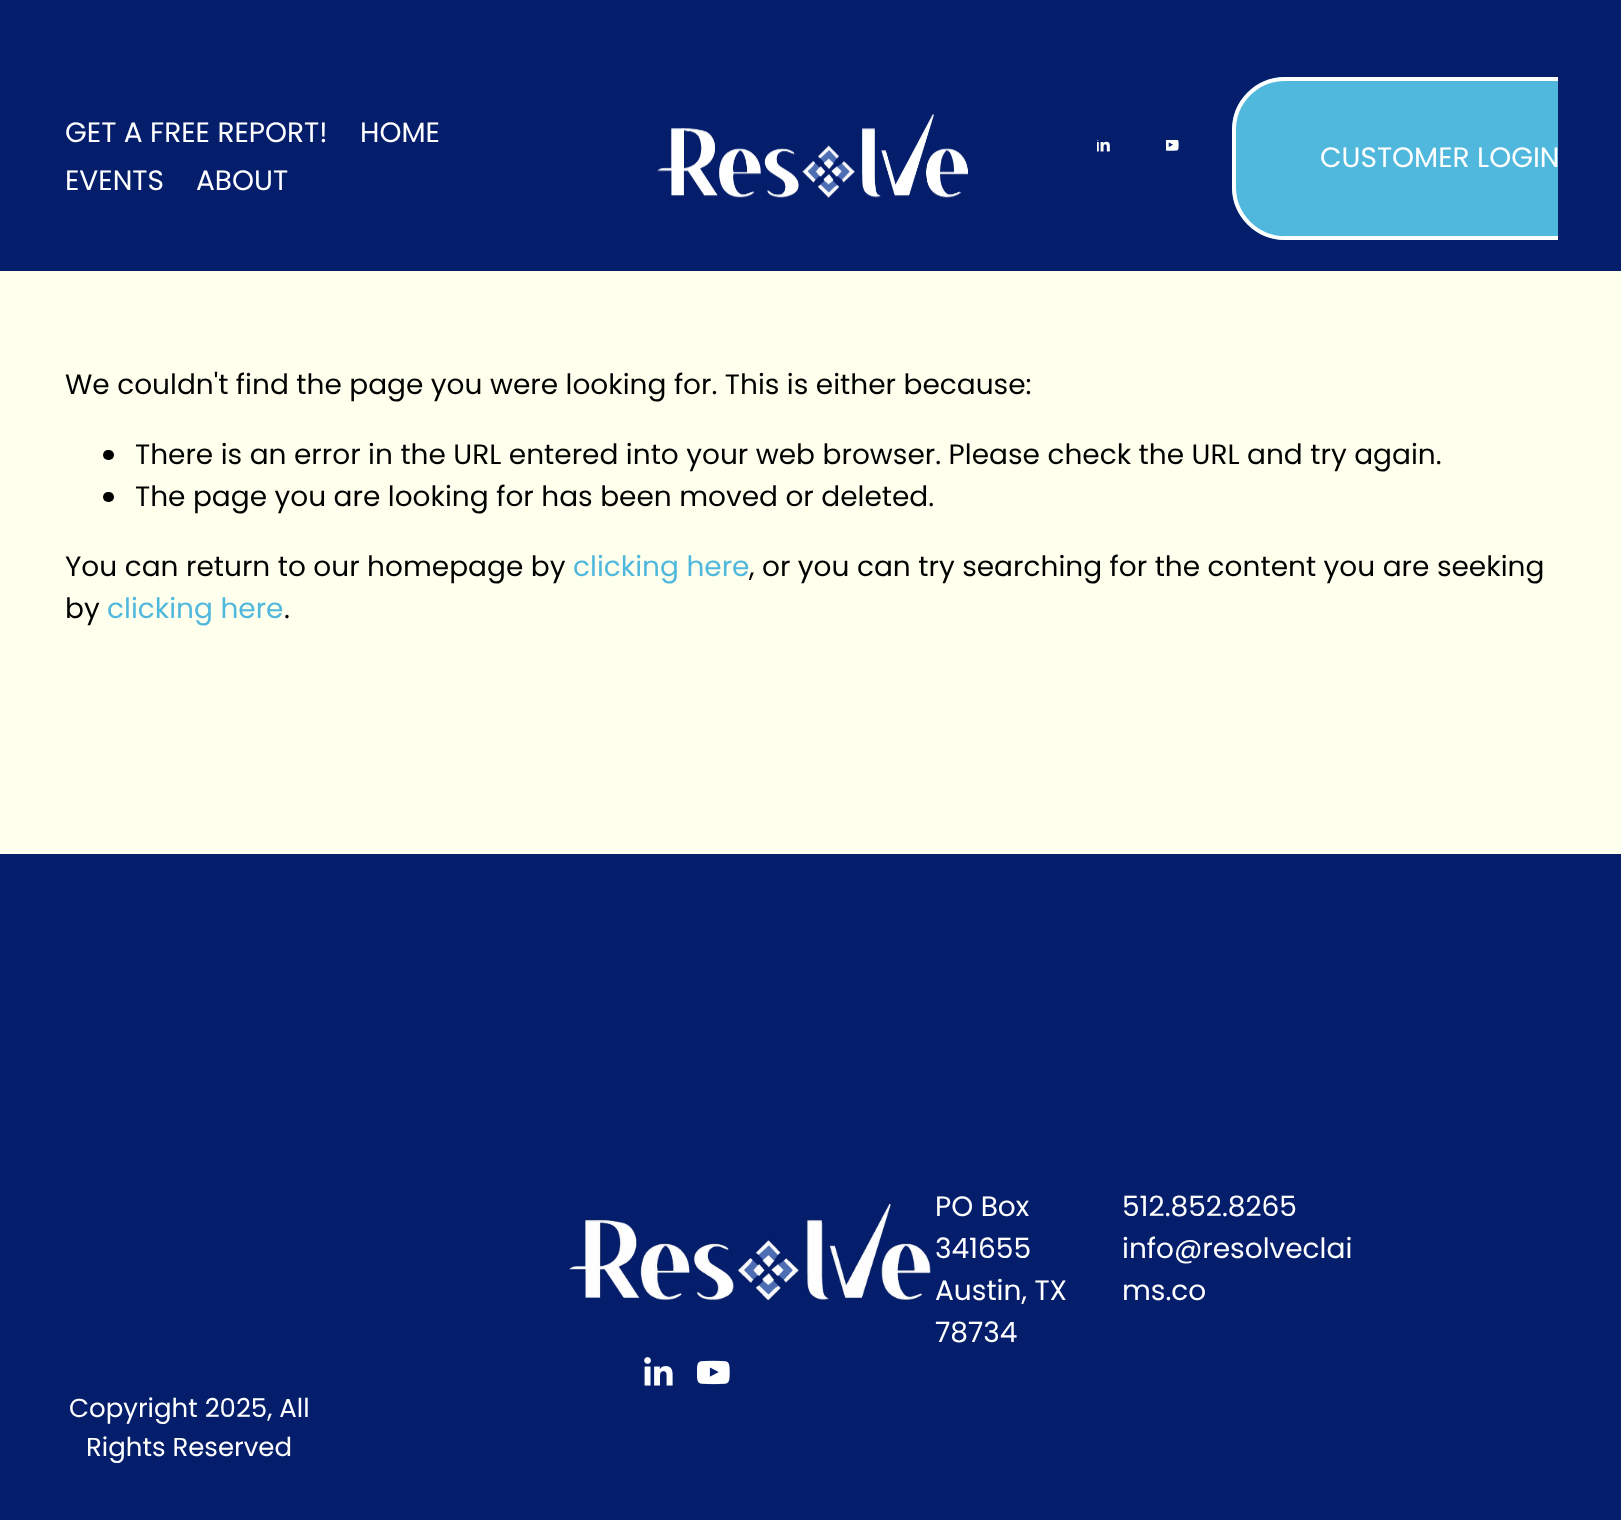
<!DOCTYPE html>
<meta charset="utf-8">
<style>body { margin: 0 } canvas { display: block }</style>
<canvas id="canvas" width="1621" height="1520"></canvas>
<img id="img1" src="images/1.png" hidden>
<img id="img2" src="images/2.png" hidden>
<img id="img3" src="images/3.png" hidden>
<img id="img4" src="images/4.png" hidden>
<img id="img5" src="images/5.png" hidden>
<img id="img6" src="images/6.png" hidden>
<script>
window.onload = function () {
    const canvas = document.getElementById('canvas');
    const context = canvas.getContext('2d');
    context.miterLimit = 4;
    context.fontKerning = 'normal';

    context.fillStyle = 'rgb(254, 255, 236)';
    context.fillRect(0, 0, 1621, 1520);
    context.fillStyle = 'rgb(5, 30, 107)';
    context.fillRect(0, 0, 1621, 271);
    context.drawImage(document.getElementById('img1'), 657, 114, 311, 85);
    context.drawImage(document.getElementById('img2'), 1097, 140, 13, 12);
    context.drawImage(document.getElementById('img3'), 1166, 140, 13, 11);
    context.fillStyle = 'rgb(81, 184, 221)';
    context.beginPath();
    context.roundRect(1232, 77, 326, 163, [53, 0, 0, 53]);
    context.fill();
    context.save();
    context.beginPath();
    context.rect(1232, 77, 326, 163);
    context.clip();
    context.beginPath();
    context.roundRect(1234, 79, 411, 159, 51);
    context.strokeStyle = 'rgb(255, 255, 255)';
    context.lineWidth = 4;
    context.stroke();
    context.restore();
    context.fillStyle = 'rgb(0, 0, 0)';
    context.beginPath();
    context.roundRect(103, 450, 11, 10, 5);
    context.fill();
    context.beginPath();
    context.roundRect(103, 492, 11, 10, 5);
    context.fill();
    context.fillStyle = 'rgb(5, 30, 107)';
    context.fillRect(0, 854, 1621, 666);
    context.drawImage(document.getElementById('img4'), 569, 1204, 362, 97);
    context.drawImage(document.getElementById('img5'), 644, 1357, 29, 29);
    context.drawImage(document.getElementById('img6'), 697, 1360, 33, 25);
    context.font = '28px Poppins';
    context.fillStyle = 'rgb(255, 255, 255)';
    context.fillText('GET A FREE REPORT!', 65, 142);
    context.fillText('HOME', 360, 142);
    context.fillText('EVENTS', 65, 190);
    context.fillText('ABOUT', 196, 190);
    context.fillText('CUSTOMER LOGIN', 1320, 167);
    context.fillStyle = 'rgb(0, 0, 0)';
    context.fillText('We couldn\'t find the page you were looking for. This is either because:', 65, 394);
    context.fillText('There is an error in the URL entered into your web browser. Please check the URL and try again.', 135, 464);
    context.fillText('The page you are looking for has been moved or deleted.', 135, 506);
    context.fillText('You can return to our homepage by', 65, 576);
    context.fillStyle = 'rgb(81, 184, 221)';
    context.fillText('clicking here', 573, 576);
    context.fillStyle = 'rgb(0, 0, 0)';
    context.fillText(', or you can try searching for the content you are seeking', 749, 576);
    context.fillText('by', 65, 618);
    context.fillStyle = 'rgb(81, 184, 221)';
    context.fillText('clicking here', 107, 618);
    context.fillStyle = 'rgb(0, 0, 0)';
    context.fillText('.', 284, 618);
    context.fillStyle = 'rgb(255, 255, 255)';
    context.fillText('PO Box', 935, 1216);
    context.fillText('341655', 935, 1258);
    context.fillText('Austin, TX', 935, 1300);
    context.fillText('78734', 935, 1342);
    context.fillText('512.852.8265', 1122, 1216);
    context.fillText('info@resolveclai', 1122, 1258);
    context.fillText('ms.co', 1122, 1300);
    context.font = '26px Poppins';
    context.fillText('Copyright 2025, All', 69, 1417);
    context.fillText('Rights Reserved', 86, 1456);
};
</script>
